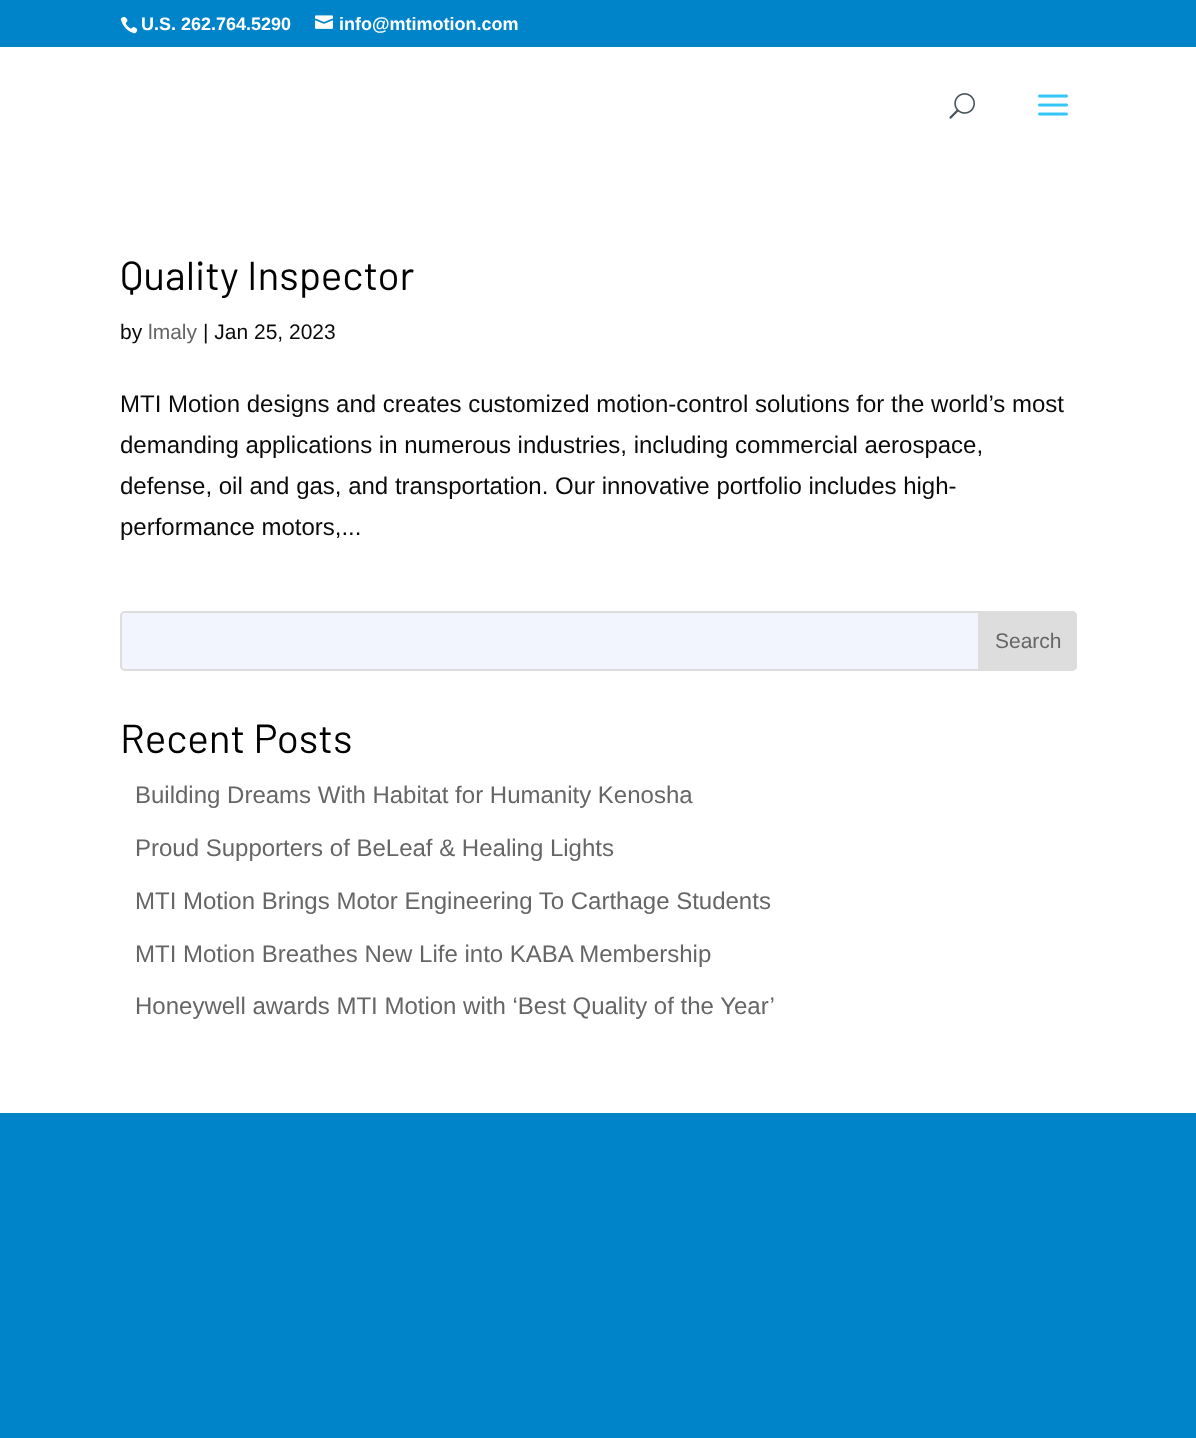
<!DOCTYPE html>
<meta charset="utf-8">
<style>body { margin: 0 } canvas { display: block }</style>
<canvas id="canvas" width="1196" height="1438"></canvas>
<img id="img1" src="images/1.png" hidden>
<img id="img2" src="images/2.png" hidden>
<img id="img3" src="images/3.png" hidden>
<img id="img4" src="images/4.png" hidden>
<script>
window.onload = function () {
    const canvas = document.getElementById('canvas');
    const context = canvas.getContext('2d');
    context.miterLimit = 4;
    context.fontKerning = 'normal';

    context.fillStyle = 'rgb(0, 132, 201)';
    context.fillRect(0, 0, 1196, 1438);
    context.drawImage(document.getElementById('img1'), 120, 16, 18, 18);
    context.drawImage(document.getElementById('img2'), 315, 15, 18, 14);
    context.fillStyle = 'rgb(255, 255, 255)';
    context.fillRect(0, 47, 1196, 1066);
    context.drawImage(document.getElementById('img3'), 949, 93, 26, 26);
    context.drawImage(document.getElementById('img4'), 1038, 94, 30, 22);
    context.fillStyle = 'rgb(242, 244, 254)';
    context.beginPath();
    context.roundRect(121, 612, 955, 58, 4);
    context.fill();
    context.strokeStyle = 'rgb(221, 221, 221)';
    context.lineWidth = 2;
    context.stroke();
    context.fillStyle = 'rgb(221, 221, 221)';
    context.beginPath();
    context.roundRect(979, 612, 97, 58, [0, 4, 4, 0]);
    context.fill();
    context.stroke();
    context.font = 'bold 18px Liberation Sans';
    context.fillStyle = 'rgb(255, 255, 255)';
    context.fillText('U.S. 262.764.5290', 141, 30);
    context.fillText('info@mtimotion.com', 339, 30);
    context.font = '40.5px Barlow';
    context.fillStyle = 'rgb(2, 2, 2)';
    context.fillText('Quality Inspector', 120, 290);
    context.font = '21px Liberation Sans';
    context.fillStyle = 'rgb(10, 10, 10)';
    context.fillText('by', 120, 339);
    context.fillStyle = 'rgb(102, 102, 102)';
    context.fillText('lmaly', 148, 339);
    context.fillStyle = 'rgb(10, 10, 10)';
    context.fillText('| Jan 25, 2023', 203, 339);
    context.font = '24px Liberation Sans';
    context.fillText('MTI Motion designs and creates customized motion-control solutions for the world’s most', 120, 412);
    context.fillText('demanding applications in numerous industries, including commercial aerospace,', 120, 453);
    context.fillText('defense, oil and gas, and transportation. Our innovative portfolio includes high-', 120, 494);
    context.fillText('performance motors,...', 120, 535);
    context.font = '21px Liberation Sans';
    context.fillStyle = 'rgb(102, 102, 102)';
    context.fillText('Search', 995, 648);
    context.font = '40.5px Barlow';
    context.fillStyle = 'rgb(2, 2, 2)';
    context.fillText('Recent Posts', 120, 753);
    context.font = '24px Liberation Sans';
    context.fillStyle = 'rgb(102, 102, 102)';
    context.fillText('Building Dreams With Habitat for Humanity Kenosha', 135, 803);
    context.fillText('Proud Supporters of BeLeaf & Healing Lights', 135, 856);
    context.fillText('MTI Motion Brings Motor Engineering To Carthage Students', 135, 909);
    context.fillText('MTI Motion Breathes New Life into KABA Membership', 135, 962);
    context.fillText('Honeywell awards MTI Motion with ‘Best Quality of the Year’', 135, 1014);
};
</script>
